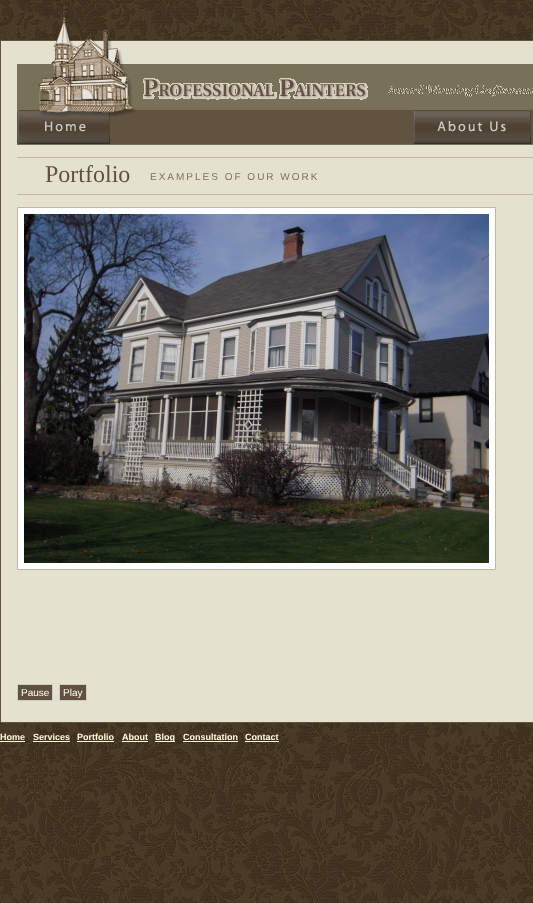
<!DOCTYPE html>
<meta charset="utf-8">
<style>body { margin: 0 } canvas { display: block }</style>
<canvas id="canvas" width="533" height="903"></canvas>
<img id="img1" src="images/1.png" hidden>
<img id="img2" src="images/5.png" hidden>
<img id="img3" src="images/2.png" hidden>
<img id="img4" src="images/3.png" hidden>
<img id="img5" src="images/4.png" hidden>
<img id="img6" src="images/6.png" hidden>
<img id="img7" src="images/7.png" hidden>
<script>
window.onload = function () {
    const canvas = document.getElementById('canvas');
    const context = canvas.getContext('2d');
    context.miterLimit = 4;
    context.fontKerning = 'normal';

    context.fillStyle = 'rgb(255, 255, 255)';
    context.fillRect(0, 0, 533, 903);
    context.drawImage(document.getElementById('img1'), 0, 0, 533, 903);
    context.fillStyle = 'rgb(228, 226, 206)';
    context.beginPath();
    context.rect(0.5, 40.5, 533, 682);
    context.fill();
    context.strokeStyle = 'rgb(97, 83, 63)';
    context.stroke();
    context.fillStyle = 'rgb(120, 112, 88)';
    context.fillRect(17, 64, 516, 81);
    context.fillStyle = 'rgb(97, 83, 63)';
    context.fillRect(110, 110, 423, 34);
    context.drawImage(document.getElementById('img2'), 17, 110, 93, 34);
    context.drawImage(document.getElementById('img3'), 38, 6, 98, 111);
    context.drawImage(document.getElementById('img4'), 143, 78, 225, 22);
    context.drawImage(document.getElementById('img5'), 387, 85, 146, 12);
    context.drawImage(document.getElementById('img6'), 414, 110, 117, 34);
    context.fillStyle = 'rgb(195, 181, 161)';
    context.fillRect(17, 157, 516, 1);
    context.fillRect(17, 194, 516, 1);
    context.fillStyle = 'rgb(255, 255, 255)';
    context.beginPath();
    context.rect(17.5, 207.5, 478, 362);
    context.fill();
    context.strokeStyle = 'rgb(195, 181, 161)';
    context.stroke();
    context.drawImage(document.getElementById('img7'), 24, 214, 465, 349);
    context.fillStyle = 'rgb(96, 81, 62)';
    context.beginPath();
    context.rect(17.5, 684.5, 35, 16);
    context.fill();
    context.strokeStyle = 'rgb(204, 204, 204)';
    context.stroke();
    context.beginPath();
    context.rect(59.5, 684.5, 27, 16);
    context.fill();
    context.stroke();
    context.fillStyle = 'rgb(255, 251, 220)';
    context.fillRect(0, 741, 25, 1);
    context.fillRect(33, 741, 37, 1);
    context.fillRect(77, 741, 37, 1);
    context.fillRect(122, 741, 26, 1);
    context.fillRect(155, 741, 20, 1);
    context.fillRect(183, 741, 55, 1);
    context.fillRect(245, 741, 34, 1);
    context.font = '24px Liberation Serif';
    context.fillStyle = 'rgb(96, 81, 62)';
    context.fillText('Portfolio', 45, 182);
    context.letterSpacing = '2px';
    context.font = '10px Liberation Sans';
    context.fillStyle = 'rgb(128, 112, 87)';
    context.fillText('EXAMPLES OF OUR WORK', 150, 180);
    context.letterSpacing = '0px';
    context.fillStyle = 'rgb(255, 255, 255)';
    context.fillText('Pause', 21, 696);
    context.fillText('Play', 63, 696);
    context.font = 'bold 9px Liberation Sans';
    context.fillStyle = 'rgb(255, 251, 220)';
    context.fillText('Home', 0, 740);
    context.fillText('Services', 33, 740);
    context.fillText('Portfolio', 77, 740);
    context.fillText('About', 122, 740);
    context.fillText('Blog', 155, 740);
    context.fillText('Consultation', 183, 740);
    context.fillText('Contact', 245, 740);
};
</script>
